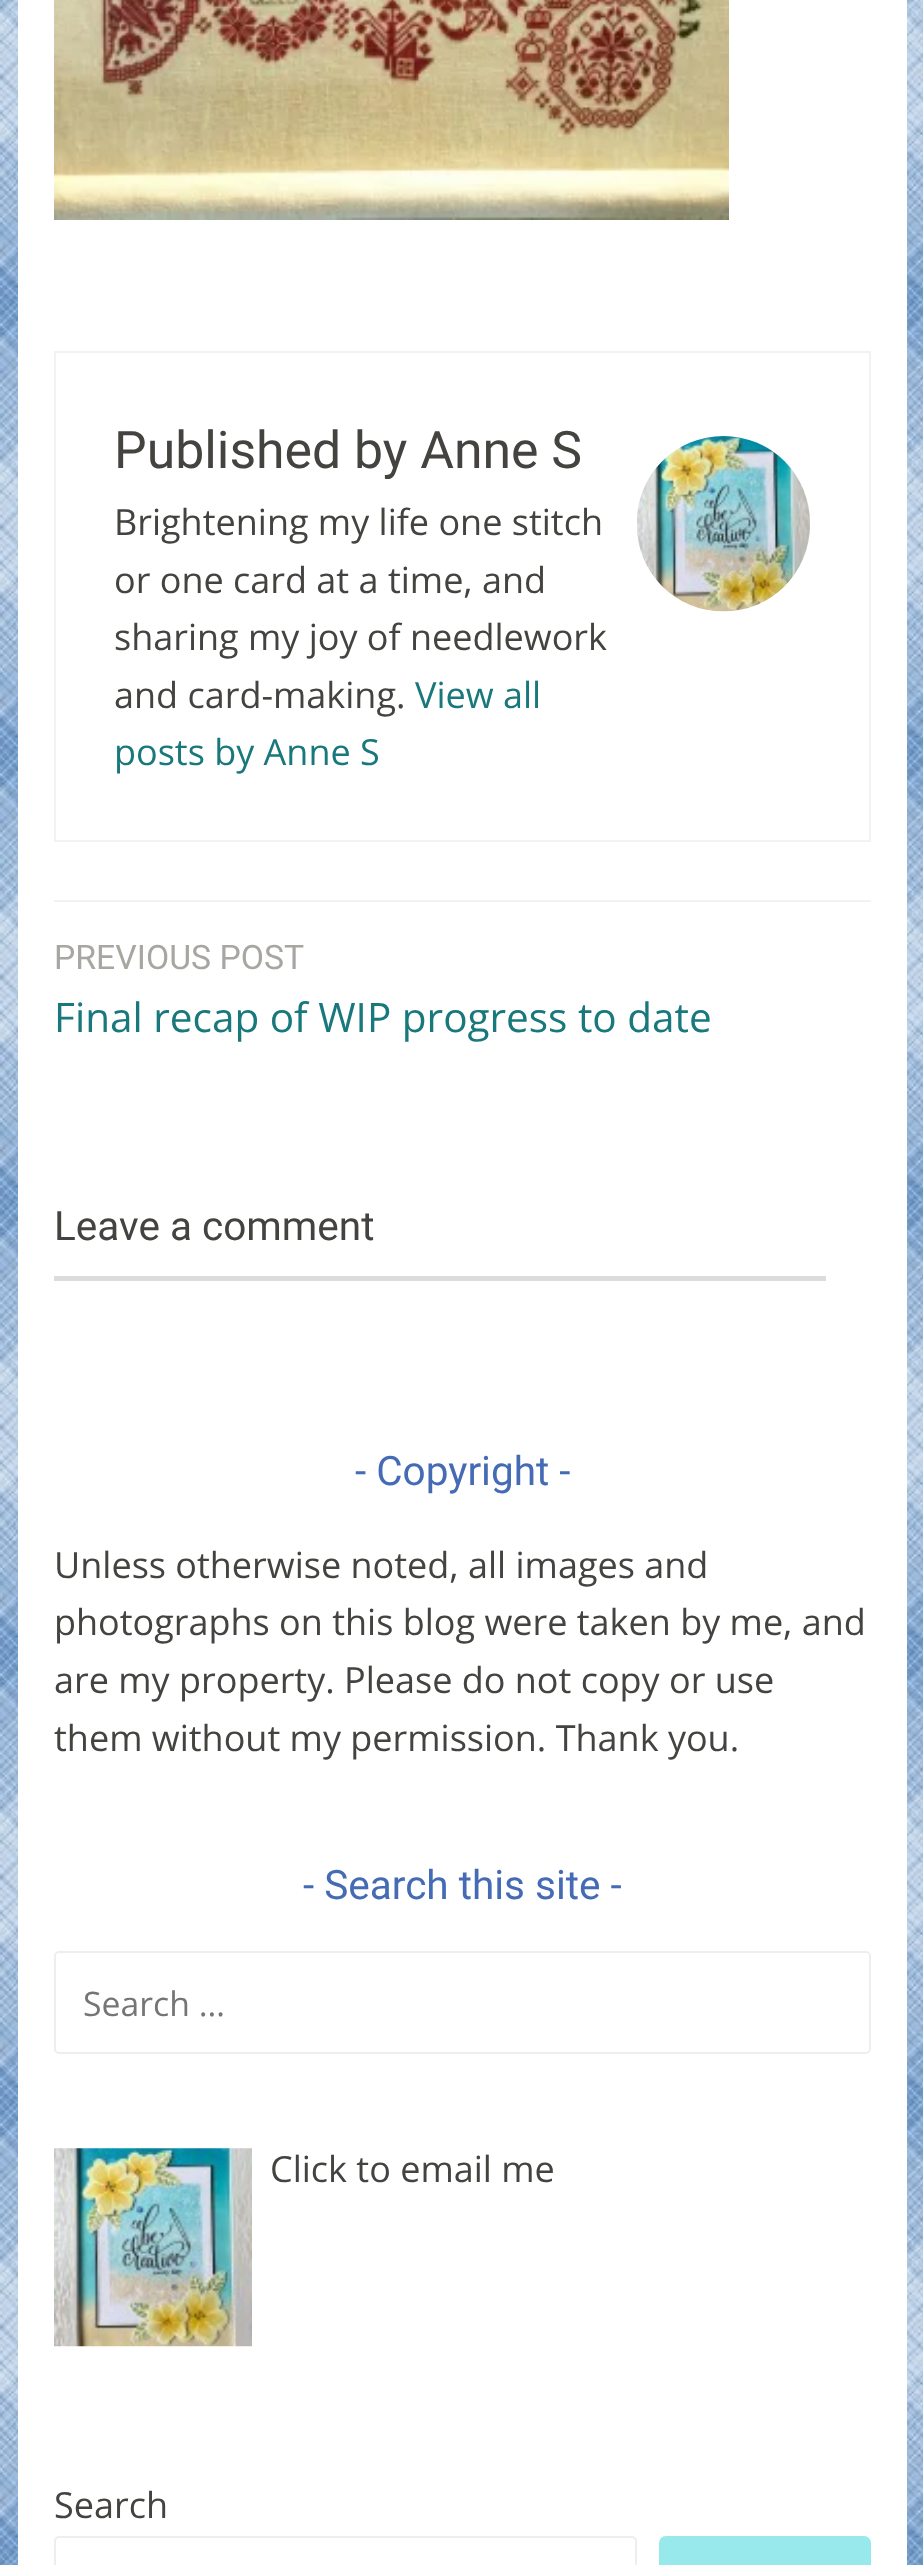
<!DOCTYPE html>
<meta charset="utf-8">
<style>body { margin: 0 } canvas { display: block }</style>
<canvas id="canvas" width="923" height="2565"></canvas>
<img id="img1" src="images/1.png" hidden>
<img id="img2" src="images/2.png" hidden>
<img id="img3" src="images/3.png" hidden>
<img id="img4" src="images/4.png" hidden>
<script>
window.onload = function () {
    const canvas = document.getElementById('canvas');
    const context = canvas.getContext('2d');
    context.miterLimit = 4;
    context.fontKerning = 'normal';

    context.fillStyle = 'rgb(255, 255, 255)';
    context.fillRect(0, 0, 923, 2565);
    context.drawImage(document.getElementById('img1'), 0, 0, 923, 2565);
    context.fillRect(18, 0, 889, 2565);
    context.drawImage(document.getElementById('img2'), 54, 0, 675, 220);
    context.strokeStyle = 'rgb(242, 242, 242)';
    context.lineWidth = 2;
    context.strokeRect(55, 352, 815, 489);
    context.drawImage(document.getElementById('img3'), 637, 436, 173, 176);
    context.fillStyle = 'rgb(242, 242, 242)';
    context.fillRect(54, 900, 817, 2);
    context.fillStyle = 'rgb(220, 220, 222)';
    context.fillRect(54, 1276, 772, 5);
    context.beginPath();
    context.roundRect(55, 1952, 815, 101, 4);
    context.strokeStyle = 'rgb(238, 238, 238)';
    context.stroke();
    context.drawImage(document.getElementById('img4'), 54, 2148, 198, 199);
    context.beginPath();
    context.roundRect(55, 2537, 581, 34, 4);
    context.stroke();
    context.fillStyle = 'rgb(151, 233, 236)';
    context.beginPath();
    context.roundRect(659, 2536, 212, 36, 7);
    context.fill();
    context.font = '51.75px Roboto';
    context.fillStyle = 'rgb(68, 67, 64)';
    context.fillText('Published by Anne S', 114, 468);
    context.font = '36px Open Sans';
    context.fillText('Brightening my life one stitch', 114, 535);
    context.fillText('or one card at a time, and', 114, 593);
    context.fillText('sharing my joy of needlework', 114, 650);
    context.fillText('and card-making.', 114, 708);
    context.fillStyle = 'rgb(24, 120, 123)';
    context.fillText('View all', 415, 708);
    context.fillText('posts by Anne S', 114, 765);
    context.font = '33.75px Roboto';
    context.fillStyle = 'rgb(168, 166, 161)';
    context.fillText('PREVIOUS POST', 54, 969);
    context.font = '40.5px Open Sans';
    context.fillStyle = 'rgb(24, 120, 123)';
    context.fillText('Final recap of WIP progress to date', 54, 1032);
    context.font = '40.5px Roboto';
    context.fillStyle = 'rgb(68, 67, 64)';
    context.fillText('Leave a comment', 54, 1240);
    context.fillStyle = 'rgb(69, 107, 180)';
    context.fillText('- Copyright -', 355, 1485);
    context.font = '36px Open Sans';
    context.fillStyle = 'rgb(68, 67, 64)';
    context.fillText('Unless otherwise noted, all images and', 54, 1578);
    context.fillText('photographs on this blog were taken by me, and', 54, 1635);
    context.fillText('are my property. Please do not copy or use', 54, 1693);
    context.fillText('them without my permission. Thank you.', 54, 1751);
    context.font = '40.5px Roboto';
    context.fillStyle = 'rgb(69, 107, 180)';
    context.fillText('- Search this site -', 303, 1899);
    context.font = '33.75px Open Sans';
    context.fillStyle = 'rgb(117, 117, 117)';
    context.fillText('Search …', 83, 2016);
    context.font = '36px Open Sans';
    context.fillStyle = 'rgb(68, 67, 64)';
    context.fillText('Click to email me', 270, 2182);
    context.fillText('Search', 54, 2518);
};
</script>
